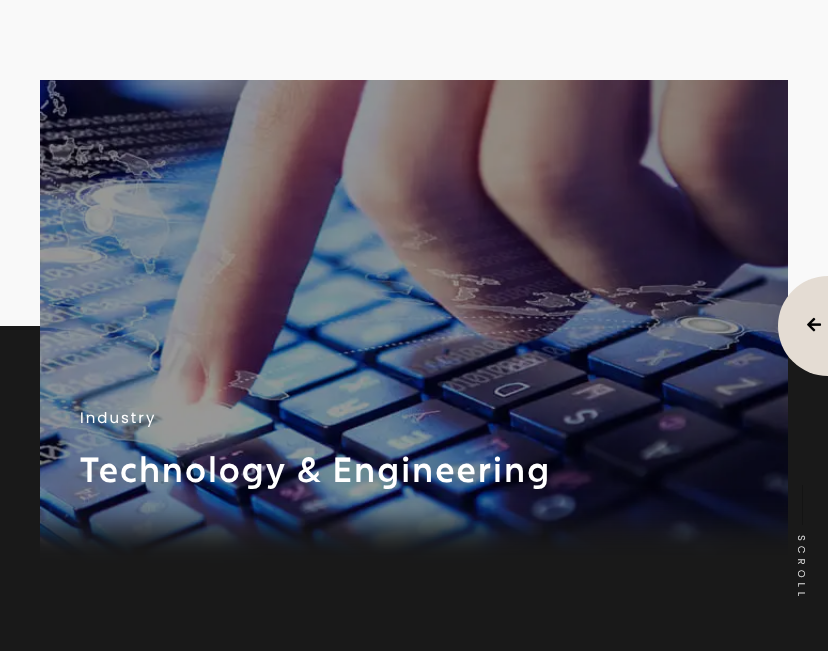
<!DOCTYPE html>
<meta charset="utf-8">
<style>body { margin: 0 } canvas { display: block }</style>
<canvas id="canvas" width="828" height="651"></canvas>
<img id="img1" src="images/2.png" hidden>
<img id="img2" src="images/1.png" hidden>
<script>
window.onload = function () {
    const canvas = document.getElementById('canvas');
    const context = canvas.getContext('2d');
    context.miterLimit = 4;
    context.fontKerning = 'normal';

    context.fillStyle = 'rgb(249, 249, 249)';
    context.fillRect(0, 0, 828, 651);
    context.fillStyle = 'rgb(25, 25, 25)';
    context.fillRect(0, 326, 828, 325);
    context.drawImage(document.getElementById('img1'), 40, 80, 748, 491);
    context.fillStyle = 'rgb(228, 220, 211)';
    context.beginPath();
    context.arc(828, 326, 50, 0, 2 * Math.PI);
    context.fill();
    context.drawImage(document.getElementById('img2'), 807, 317, 15, 15);
    context.save();
    context.beginPath();
    context.rect(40, 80, 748, 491);
    context.clip();
    context.fillStyle = 'rgb(25, 25, 25)';
    context.filter = 'blur(15.5px)';
    context.beginPath();
    context.rect(-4, 526, 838, 90);
    context.fill();
    context.filter = 'none';
    context.restore();
    context.fillStyle = 'rgb(19, 19, 19)';
    context.fillRect(802, 485, 1, 40);
    context.letterSpacing = '2px';
    context.font = '15px Poppins';
    context.fillStyle = 'rgb(255, 255, 255)';
    context.fillText('Industry', 80, 423);
    context.font = '500 34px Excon';
    context.fillText('Technology & Engineering', 80, 482);
    context.letterSpacing = '5px';
    context.font = '10px Poppins';
    context.fillStyle = 'rgb(221, 221, 221)';
    context.save();
    context.translate(798, 535);
    context.rotate(90 * Math.PI / 180);
    context.fillText('SCROLL', 0, 0);
    context.restore();
};
</script>
